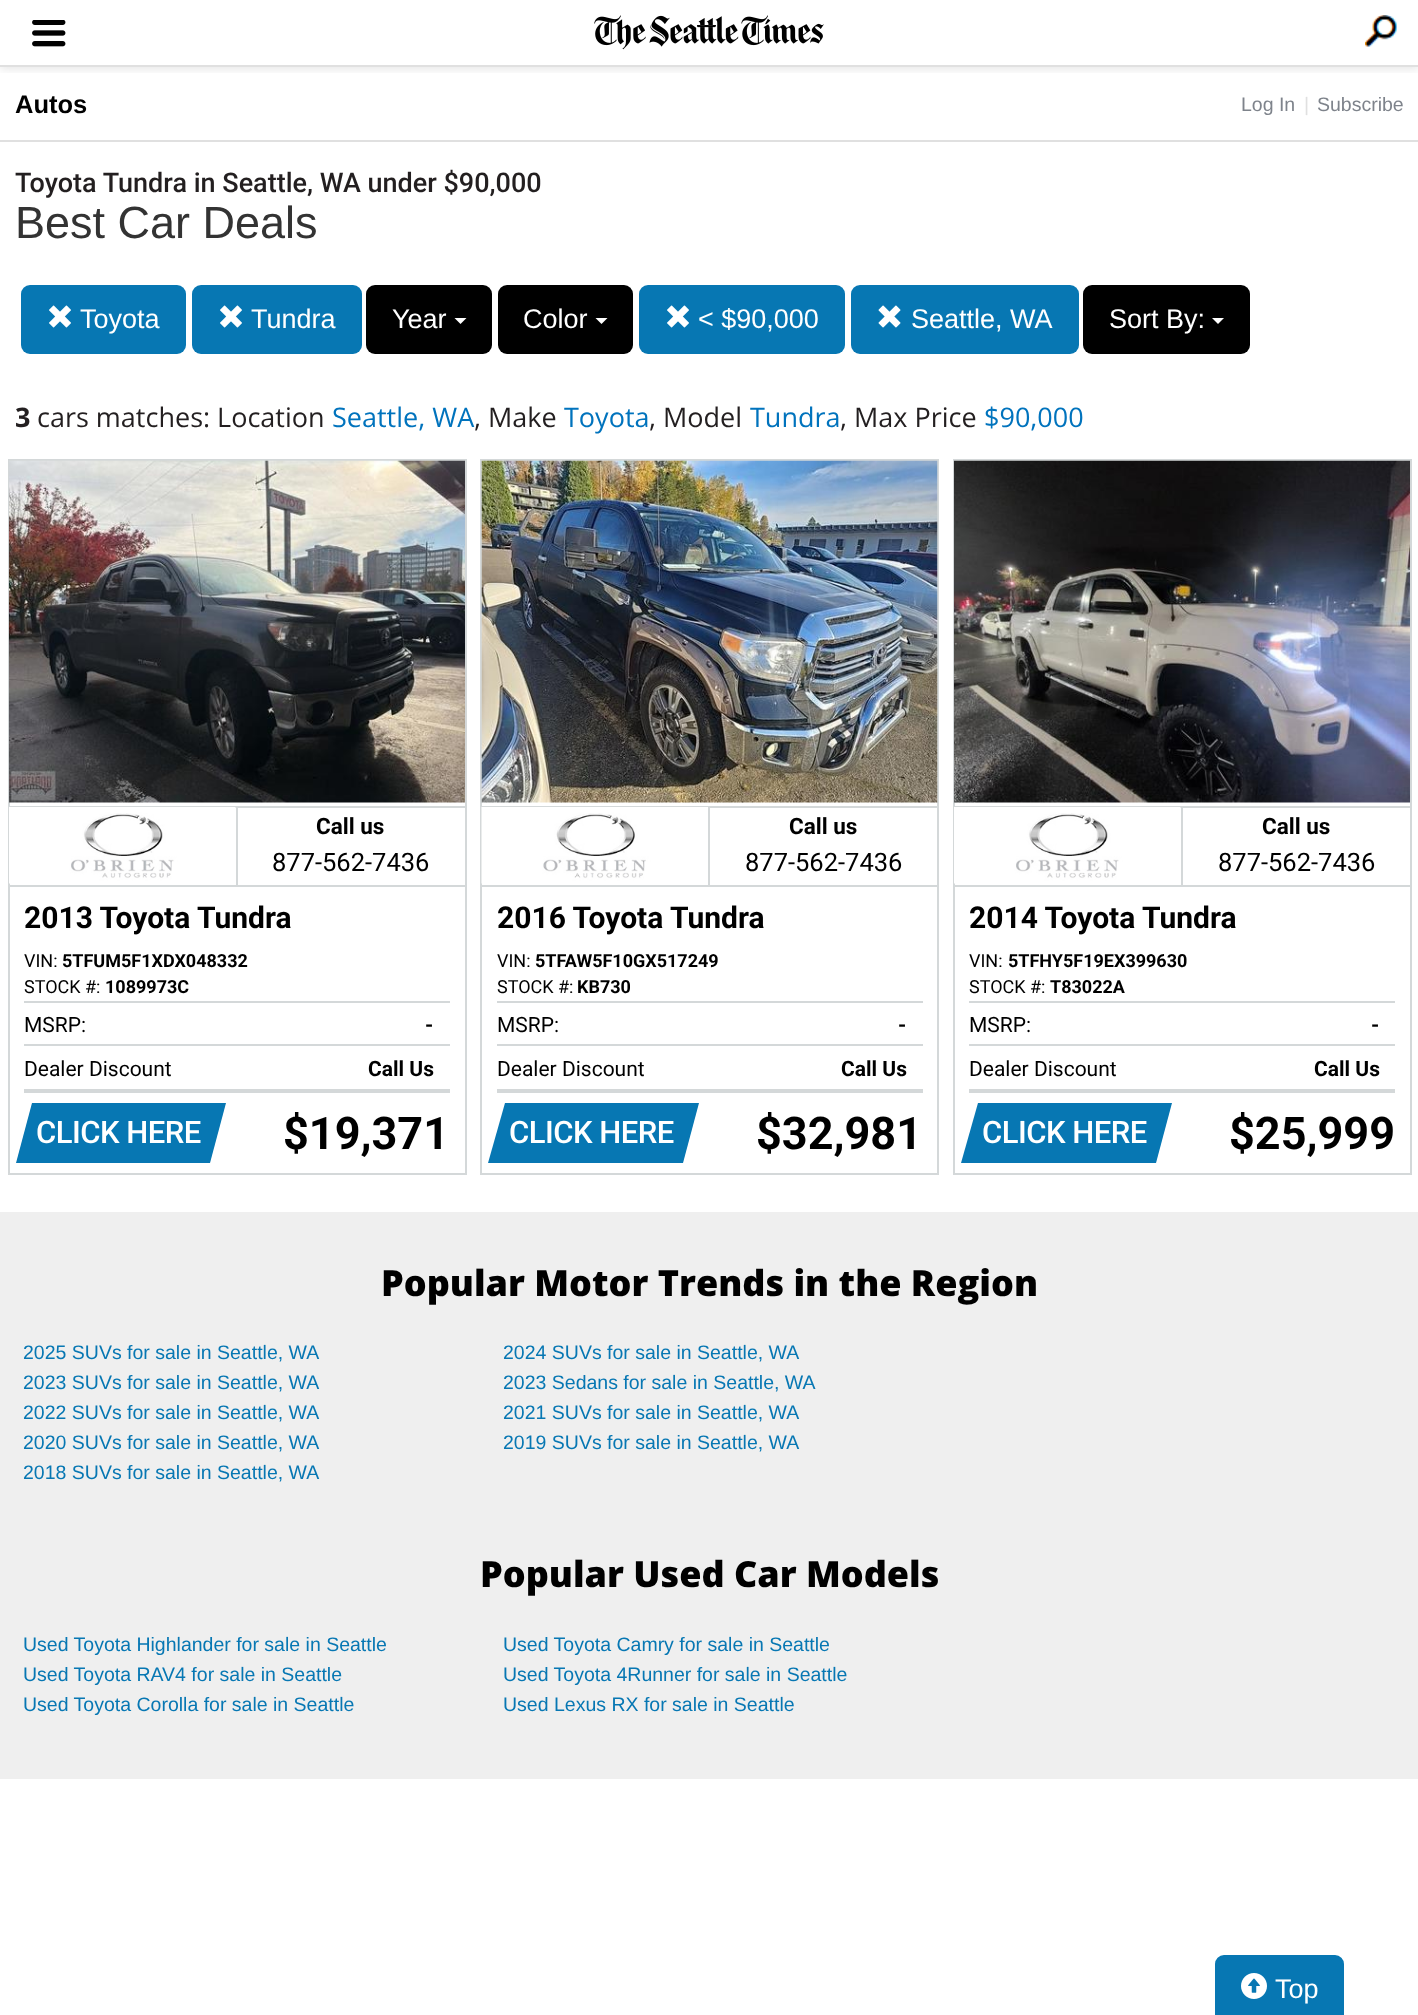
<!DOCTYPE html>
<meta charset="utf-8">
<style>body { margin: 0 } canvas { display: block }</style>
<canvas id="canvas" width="1418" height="2015"></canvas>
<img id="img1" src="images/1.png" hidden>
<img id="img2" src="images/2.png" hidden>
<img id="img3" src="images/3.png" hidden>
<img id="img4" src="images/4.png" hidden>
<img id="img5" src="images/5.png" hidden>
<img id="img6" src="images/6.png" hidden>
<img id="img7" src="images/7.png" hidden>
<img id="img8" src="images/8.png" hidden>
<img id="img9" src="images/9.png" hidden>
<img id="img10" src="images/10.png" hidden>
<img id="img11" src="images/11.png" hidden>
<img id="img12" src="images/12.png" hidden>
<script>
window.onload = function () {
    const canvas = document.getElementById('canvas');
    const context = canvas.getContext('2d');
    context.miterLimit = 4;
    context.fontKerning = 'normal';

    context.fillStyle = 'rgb(255, 255, 255)';
    context.fillRect(0, 0, 1418, 2015);
    context.save();
    context.beginPath();
    context.rect(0, 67, 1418, 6);
    context.clip();
    context.fillStyle = 'rgba(0, 0, 0, 0.1)';
    context.filter = 'blur(5px)';
    context.beginPath();
    context.rect(0, 3, 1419, 66);
    context.fill();
    context.filter = 'none';
    context.restore();
    context.fillStyle = 'rgb(224, 224, 224)';
    context.fillRect(0, 65, 1418, 2);
    context.drawImage(document.getElementById('img1'), 32, 20, 34, 27);
    context.drawImage(document.getElementById('img2'), 594, 15, 230, 35);
    context.drawImage(document.getElementById('img3'), 1365, 15, 32, 32);
    context.fillRect(0, 140, 1418, 2);
    context.fillStyle = 'rgb(7, 119, 179)';
    context.beginPath();
    context.roundRect(21, 285, 165, 69, 9);
    context.fill();
    context.drawImage(document.getElementById('img4'), 49, 305, 22, 23);
    context.beginPath();
    context.roundRect(192, 285, 170, 69, 9);
    context.fill();
    context.drawImage(document.getElementById('img4'), 220, 305, 22, 23);
    context.fillStyle = 'rgb(0, 0, 0)';
    context.beginPath();
    context.roundRect(366, 285, 126, 69, 9);
    context.fill();
    context.fillStyle = 'rgb(255, 255, 255)';
    context.beginPath();
    context.moveTo(454.5, 318);
    context.lineTo(466.5, 318);
    context.lineTo(460.5, 324);
    context.closePath();
    context.fill();
    context.fillStyle = 'rgb(0, 0, 0)';
    context.beginPath();
    context.roundRect(498, 285, 135, 69, 9);
    context.fill();
    context.fillStyle = 'rgb(255, 255, 255)';
    context.beginPath();
    context.moveTo(595.5, 318);
    context.lineTo(607.5, 318);
    context.lineTo(601.5, 324);
    context.closePath();
    context.fill();
    context.fillStyle = 'rgb(7, 119, 179)';
    context.beginPath();
    context.roundRect(639, 285, 206, 69, 9);
    context.fill();
    context.drawImage(document.getElementById('img4'), 667, 305, 22, 23);
    context.beginPath();
    context.roundRect(851, 285, 228, 69, 9);
    context.fill();
    context.drawImage(document.getElementById('img5'), 878, 305, 23, 23);
    context.fillStyle = 'rgb(0, 0, 0)';
    context.beginPath();
    context.roundRect(1083, 285, 167, 69, 9);
    context.fill();
    context.fillStyle = 'rgb(255, 255, 255)';
    context.beginPath();
    context.moveTo(1212, 318);
    context.lineTo(1224, 318);
    context.lineTo(1218, 324);
    context.closePath();
    context.fill();
    context.strokeStyle = 'rgb(212, 216, 217)';
    context.lineWidth = 2;
    context.strokeRect(9, 460, 457, 714);
    context.drawImage(document.getElementById('img6'), 9, 460, 456, 343);
    context.fillStyle = 'rgb(212, 216, 217)';
    context.fillRect(9, 806, 228, 2);
    context.fillRect(236, 806, 2, 81);
    context.fillRect(9, 885, 456, 2);
    context.drawImage(document.getElementById('img7'), 9, 807, 227, 77);
    context.fillRect(237, 806, 228, 2);
    context.fillRect(24, 1001, 426, 2);
    context.fillRect(24, 1044, 426, 2);
    context.fillRect(24, 1089, 426, 4);
    context.fillStyle = 'rgb(7, 119, 179)';
    context.beginPath();
    context.moveTo(32, 1103);
    context.lineTo(226, 1103);
    context.lineTo(210, 1163);
    context.lineTo(16, 1163);
    context.closePath();
    context.fill();
    context.strokeRect(481, 460, 457, 714);
    context.drawImage(document.getElementById('img8'), 481, 460, 457, 343);
    context.fillStyle = 'rgb(212, 216, 217)';
    context.fillRect(482, 806, 228, 1);
    context.fillRect(708, 806, 2, 81);
    context.fillRect(482, 885, 456, 2);
    context.drawImage(document.getElementById('img9'), 481, 807, 227, 77);
    context.fillRect(710, 806, 228, 2);
    context.fillRect(497, 1001, 426, 2);
    context.fillRect(497, 1044, 426, 2);
    context.fillRect(497, 1089, 426, 4);
    context.fillStyle = 'rgb(7, 119, 179)';
    context.beginPath();
    context.moveTo(505, 1103);
    context.lineTo(699, 1103);
    context.lineTo(683, 1163);
    context.lineTo(488, 1163);
    context.closePath();
    context.fill();
    context.strokeRect(954, 460, 457, 714);
    context.drawImage(document.getElementById('img10'), 954, 460, 456, 343);
    context.fillStyle = 'rgb(212, 216, 217)';
    context.fillRect(954, 806, 228, 2);
    context.fillRect(1181, 806, 2, 81);
    context.fillRect(954, 885, 456, 2);
    context.drawImage(document.getElementById('img11'), 954, 807, 227, 77);
    context.fillRect(1182, 806, 228, 2);
    context.fillRect(969, 1001, 426, 2);
    context.fillRect(969, 1044, 426, 2);
    context.fillRect(969, 1089, 426, 4);
    context.fillStyle = 'rgb(7, 119, 179)';
    context.beginPath();
    context.moveTo(978, 1103);
    context.lineTo(1172, 1103);
    context.lineTo(1156, 1163);
    context.lineTo(961, 1163);
    context.closePath();
    context.fill();
    context.beginPath();
    context.roundRect(1216, 1956, 127, 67, 8);
    context.fill();
    context.strokeStyle = 'rgb(7, 119, 179)';
    context.stroke();
    context.drawImage(document.getElementById('img12'), 1241, 1973, 26, 26);
    context.fillStyle = 'rgb(239, 239, 239)';
    context.fillRect(0, 1212, 1418, 567);
    context.font = 'bold 25.5px Liberation Sans';
    context.fillStyle = 'rgb(0, 0, 0)';
    context.fillText('Autos', 15, 113);
    context.font = '19.5px Liberation Sans';
    context.fillStyle = 'rgb(126, 131, 139)';
    context.fillText('Log In', 1241, 111);
    context.fillStyle = 'rgb(224, 224, 224)';
    context.fillText('|', 1304, 111);
    context.fillStyle = 'rgb(126, 131, 139)';
    context.fillText('Subscribe', 1317, 111);
    context.font = '500 27px Roboto';
    context.fillStyle = 'rgb(35, 31, 32)';
    context.fillText('Toyota Tundra in Seattle, WA under $90,000', 15, 192);
    context.font = '45px Liberation Sans';
    context.fillStyle = 'rgb(51, 51, 51)';
    context.fillText('Best Car Deals', 15, 238);
    context.font = '27px Liberation Sans';
    context.fillStyle = 'rgb(255, 255, 255)';
    context.fillText('Toyota', 80, 328);
    context.fillText('Tundra', 251, 328);
    context.fillText('Year', 392, 328);
    context.fillText('Color', 523, 328);
    context.fillText('< $90,000', 698, 328);
    context.fillText('Seattle, WA', 911, 328);
    context.fillText('Sort By:', 1109, 328);
    context.font = 'bold 27px Open Sans';
    context.fillStyle = 'rgb(35, 31, 32)';
    context.fillText('3', 15, 427);
    context.font = '27px Open Sans';
    context.fillText('cars matches: Location', 37, 427);
    context.fillStyle = 'rgb(0, 115, 189)';
    context.fillText('Seattle, WA', 332, 427);
    context.fillStyle = 'rgb(35, 31, 32)';
    context.fillText(', Make', 474, 427);
    context.fillStyle = 'rgb(0, 115, 189)';
    context.fillText('Toyota', 564, 427);
    context.fillStyle = 'rgb(35, 31, 32)';
    context.fillText(', Model', 649, 427);
    context.fillStyle = 'rgb(0, 115, 189)';
    context.fillText('Tundra', 750, 427);
    context.fillStyle = 'rgb(35, 31, 32)';
    context.fillText(', Max Price', 840, 427);
    context.fillStyle = 'rgb(0, 115, 189)';
    context.fillText('$90,000', 984, 427);
    context.font = 'bold 22.5px Roboto';
    context.fillStyle = 'rgb(0, 0, 0)';
    context.fillText('Call us', 316, 834);
    context.font = '25.5px Roboto';
    context.fillText('877-562-7436', 272, 871);
    context.font = 'bold 30px Roboto';
    context.fillText('2013 Toyota Tundra', 24, 928);
    context.font = '18px Roboto';
    context.fillText('VIN:', 24, 967);
    context.font = 'bold 18px Roboto';
    context.fillText('5TFUM5F1XDX048332', 62, 967);
    context.font = '18px Roboto';
    context.fillText('STOCK #:', 24, 993);
    context.font = 'bold 18px Roboto';
    context.fillText('1089973C', 105, 993);
    context.font = '21px Roboto';
    context.fillText('MSRP:', 24, 1032);
    context.font = 'bold 21px Roboto';
    context.fillText('-', 425, 1032);
    context.font = '21px Roboto';
    context.fillText('Dealer Discount', 24, 1076);
    context.font = 'bold 21px Roboto';
    context.fillText('Call Us', 368, 1076);
    context.letterSpacing = '-0.5px';
    context.font = '500 31px Roboto';
    context.fillStyle = 'rgb(255, 255, 255)';
    context.fillText('CLICK HERE', 36, 1143);
    context.letterSpacing = '0px';
    context.font = 'bold 45px Roboto';
    context.fillStyle = 'rgb(0, 0, 0)';
    context.fillText('$19,371', 283, 1149);
    context.font = 'bold 22.5px Roboto';
    context.fillText('Call us', 789, 834);
    context.font = '25.5px Roboto';
    context.fillText('877-562-7436', 745, 871);
    context.font = 'bold 30px Roboto';
    context.fillText('2016 Toyota Tundra', 497, 928);
    context.font = '18px Roboto';
    context.fillText('VIN:', 497, 967);
    context.font = 'bold 18px Roboto';
    context.fillText('5TFAW5F10GX517249', 535, 967);
    context.font = '18px Roboto';
    context.fillText('STOCK #:', 497, 993);
    context.font = 'bold 18px Roboto';
    context.fillText('KB730', 577, 993);
    context.font = '21px Roboto';
    context.fillText('MSRP:', 497, 1032);
    context.font = 'bold 21px Roboto';
    context.fillText('-', 898, 1032);
    context.font = '21px Roboto';
    context.fillText('Dealer Discount', 497, 1076);
    context.font = 'bold 21px Roboto';
    context.fillText('Call Us', 841, 1076);
    context.letterSpacing = '-0.5px';
    context.font = '500 31px Roboto';
    context.fillStyle = 'rgb(255, 255, 255)';
    context.fillText('CLICK HERE', 509, 1143);
    context.letterSpacing = '0px';
    context.font = 'bold 45px Roboto';
    context.fillStyle = 'rgb(0, 0, 0)';
    context.fillText('$32,981', 756, 1149);
    context.font = 'bold 22.5px Roboto';
    context.fillText('Call us', 1262, 834);
    context.font = '25.5px Roboto';
    context.fillText('877-562-7436', 1218, 871);
    context.font = 'bold 30px Roboto';
    context.fillText('2014 Toyota Tundra', 969, 928);
    context.font = '18px Roboto';
    context.fillText('VIN:', 969, 967);
    context.font = 'bold 18px Roboto';
    context.fillText('5TFHY5F19EX399630', 1008, 967);
    context.font = '18px Roboto';
    context.fillText('STOCK #:', 969, 993);
    context.font = 'bold 18px Roboto';
    context.fillText('T83022A', 1050, 993);
    context.font = '21px Roboto';
    context.fillText('MSRP:', 969, 1032);
    context.font = 'bold 21px Roboto';
    context.fillText('-', 1371, 1032);
    context.font = '21px Roboto';
    context.fillText('Dealer Discount', 969, 1076);
    context.font = 'bold 21px Roboto';
    context.fillText('Call Us', 1314, 1076);
    context.letterSpacing = '-0.5px';
    context.font = '500 31px Roboto';
    context.fillStyle = 'rgb(255, 255, 255)';
    context.fillText('CLICK HERE', 982, 1143);
    context.letterSpacing = '0px';
    context.font = 'bold 45px Roboto';
    context.fillStyle = 'rgb(0, 0, 0)';
    context.fillText('$25,999', 1229, 1149);
    context.font = '27px Liberation Sans';
    context.fillStyle = 'rgb(255, 255, 255)';
    context.fillText('Top', 1275, 1998);
    context.font = '800 36px Open Sans';
    context.fillStyle = 'rgb(0, 0, 0)';
    context.fillText('Popular Motor Trends in the Region', 381, 1296);
    context.font = '19.5px Liberation Sans';
    context.fillStyle = 'rgb(7, 119, 179)';
    context.fillText('2025 SUVs for sale in Seattle, WA', 23, 1359);
    context.fillText('2024 SUVs for sale in Seattle, WA', 503, 1359);
    context.fillText('2023 SUVs for sale in Seattle, WA', 23, 1389);
    context.fillText('2023 Sedans for sale in Seattle, WA', 503, 1389);
    context.fillText('2022 SUVs for sale in Seattle, WA', 23, 1419);
    context.fillText('2021 SUVs for sale in Seattle, WA', 503, 1419);
    context.fillText('2020 SUVs for sale in Seattle, WA', 23, 1449);
    context.fillText('2019 SUVs for sale in Seattle, WA', 503, 1449);
    context.fillText('2018 SUVs for sale in Seattle, WA', 23, 1479);
    context.font = '800 36px Open Sans';
    context.fillStyle = 'rgb(0, 0, 0)';
    context.fillText('Popular Used Car Models', 480, 1587);
    context.font = '19.5px Liberation Sans';
    context.fillStyle = 'rgb(7, 119, 179)';
    context.fillText('Used Toyota Highlander for sale in Seattle', 23, 1651);
    context.fillText('Used Toyota Camry for sale in Seattle', 503, 1651);
    context.fillText('Used Toyota RAV4 for sale in Seattle', 23, 1681);
    context.fillText('Used Toyota 4Runner for sale in Seattle', 503, 1681);
    context.fillText('Used Toyota Corolla for sale in Seattle', 23, 1711);
    context.fillText('Used Lexus RX for sale in Seattle', 503, 1711);
};
</script>
